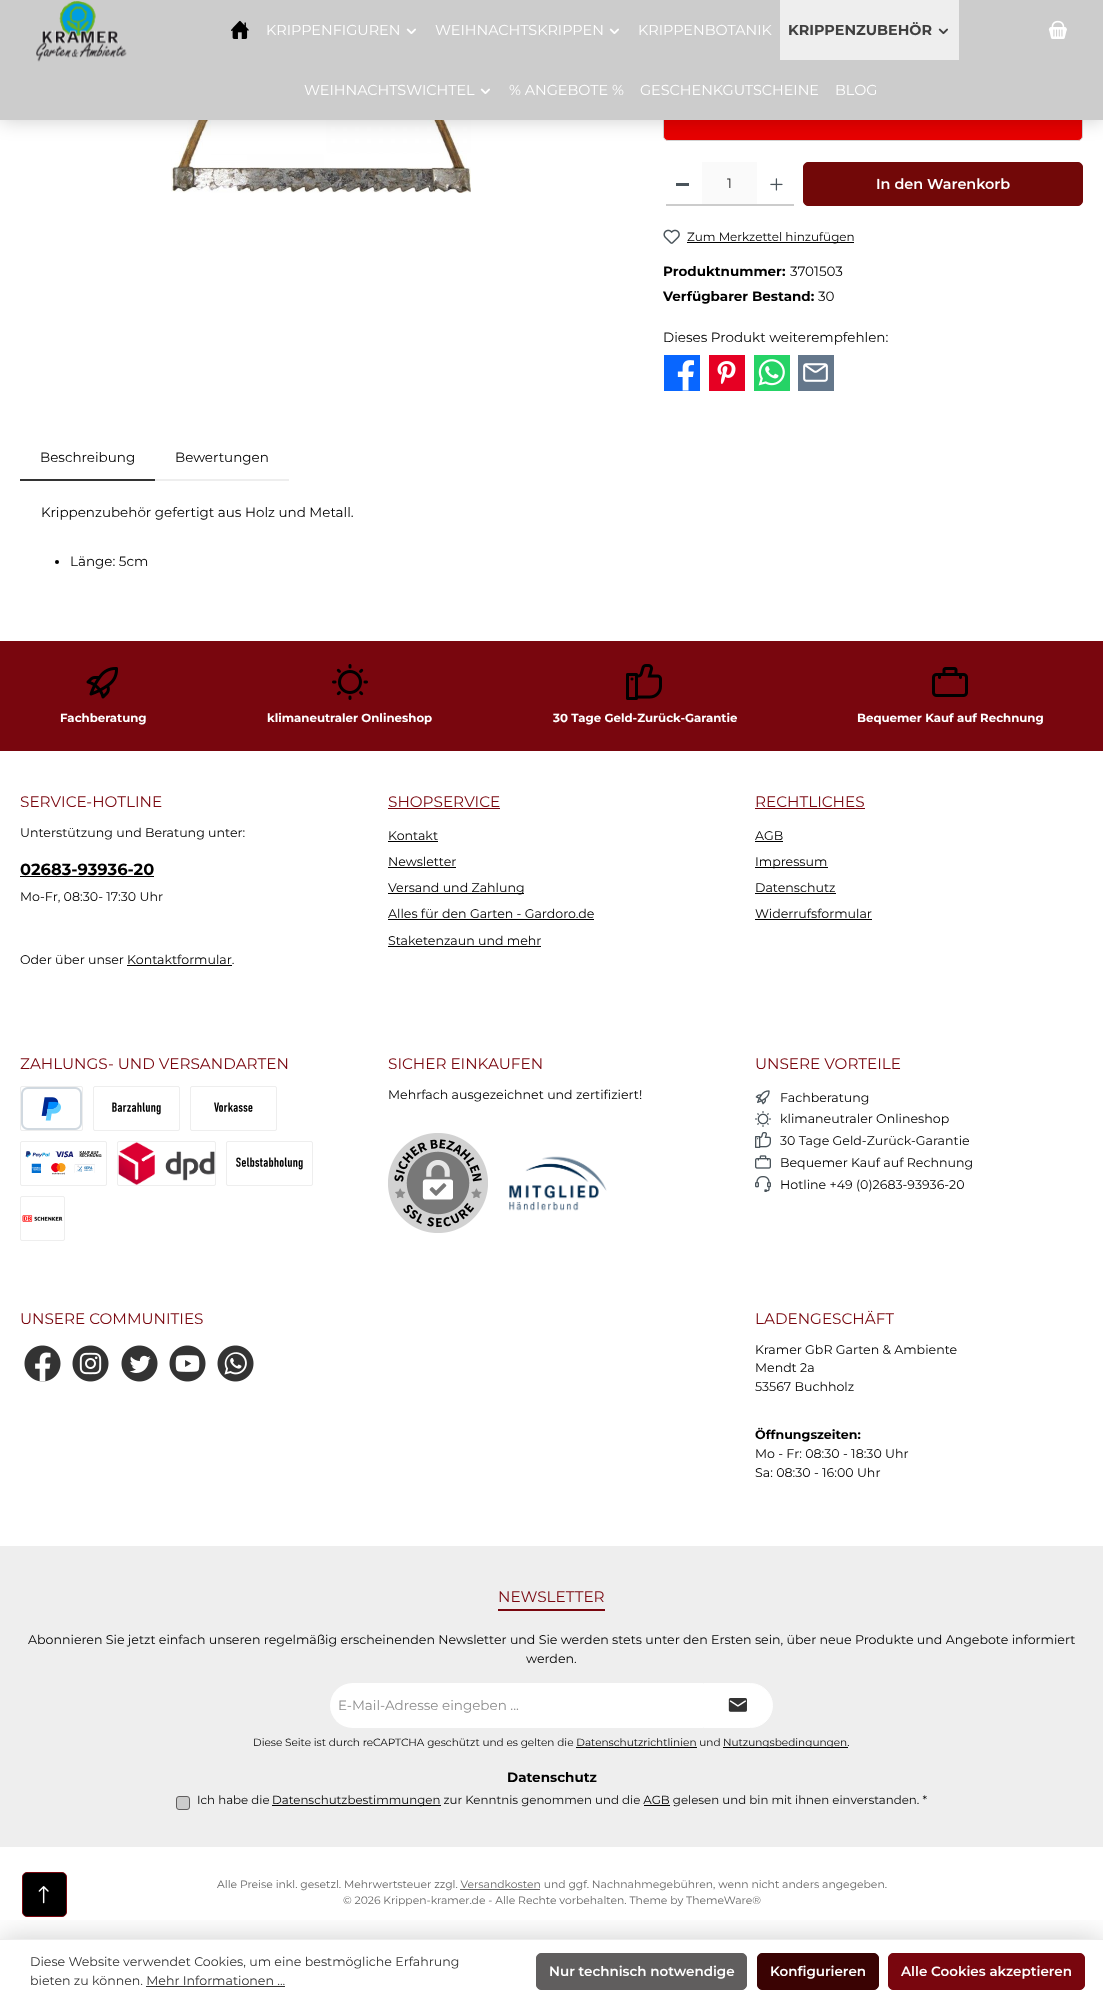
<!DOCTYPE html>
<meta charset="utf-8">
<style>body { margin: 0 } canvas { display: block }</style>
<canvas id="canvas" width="1103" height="2003"></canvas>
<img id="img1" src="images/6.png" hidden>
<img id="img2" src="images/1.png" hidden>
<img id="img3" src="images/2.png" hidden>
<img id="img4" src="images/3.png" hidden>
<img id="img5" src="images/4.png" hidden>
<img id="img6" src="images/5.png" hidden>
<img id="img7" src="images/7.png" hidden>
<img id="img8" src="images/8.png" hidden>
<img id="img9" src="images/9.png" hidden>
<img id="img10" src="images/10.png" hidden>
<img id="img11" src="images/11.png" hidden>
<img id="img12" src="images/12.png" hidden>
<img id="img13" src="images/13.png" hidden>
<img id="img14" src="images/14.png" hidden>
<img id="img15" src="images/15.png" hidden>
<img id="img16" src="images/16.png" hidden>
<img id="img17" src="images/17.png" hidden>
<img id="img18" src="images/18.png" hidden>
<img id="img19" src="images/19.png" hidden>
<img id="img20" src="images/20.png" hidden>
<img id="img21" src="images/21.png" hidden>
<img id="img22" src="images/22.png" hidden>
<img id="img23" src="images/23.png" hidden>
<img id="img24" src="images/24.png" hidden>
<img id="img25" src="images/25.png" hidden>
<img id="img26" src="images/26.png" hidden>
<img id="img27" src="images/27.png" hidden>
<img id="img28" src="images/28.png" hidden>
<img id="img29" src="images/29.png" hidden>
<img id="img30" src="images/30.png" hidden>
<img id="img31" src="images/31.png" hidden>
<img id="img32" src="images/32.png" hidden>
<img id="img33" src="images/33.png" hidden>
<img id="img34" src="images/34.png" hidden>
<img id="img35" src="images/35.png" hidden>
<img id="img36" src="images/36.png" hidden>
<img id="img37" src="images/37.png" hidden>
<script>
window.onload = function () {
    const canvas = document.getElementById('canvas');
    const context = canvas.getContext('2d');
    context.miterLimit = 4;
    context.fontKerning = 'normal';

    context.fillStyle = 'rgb(255, 255, 255)';
    context.fillRect(0, 0, 1103, 2003);
    context.drawImage(document.getElementById('img1'), 171, 120, 300, 73);
    context.fillStyle = 'rgb(231, 0, 0)';
    context.beginPath();
    context.roundRect(663.5, 47.5, 419, 93, 4.5);
    context.fill();
    context.strokeStyle = 'rgb(212, 212, 212)';
    context.stroke();
    context.fillStyle = 'rgba(0, 0, 0, 0.2)';
    context.filter = 'blur(10px)';
    context.beginPath();
    context.rect(0, 0, 1103, 120);
    context.fill();
    context.filter = 'none';
    context.fillStyle = 'rgb(204, 204, 204)';
    context.fillRect(0, 0, 1103, 120);
    context.drawImage(document.getElementById('img2'), 36, 1, 91, 61);
    context.drawImage(document.getElementById('img3'), 1048, 20, 19, 19);
    context.drawImage(document.getElementById('img4'), 231, 20, 18, 19);
    context.drawImage(document.getElementById('img5'), 406, 28, 10, 6);
    context.drawImage(document.getElementById('img5'), 609, 28, 10, 6);
    context.fillStyle = 'rgb(238, 238, 238)';
    context.fillRect(780, 0, 179, 60);
    context.drawImage(document.getElementById('img6'), 938, 28, 10, 7);
    context.drawImage(document.getElementById('img5'), 480, 88, 10, 6);
    context.fillStyle = 'rgb(204, 204, 204)';
    context.fillRect(701, 204, 57, 2);
    context.fillStyle = 'rgb(255, 255, 255)';
    context.beginPath();
    context.roundRect(663, 162, 39, 44, [5, 0, 0, 5]);
    context.fill();
    context.fillStyle = 'rgb(204, 204, 204)';
    context.fillRect(666, 204, 36, 2);
    context.fillStyle = 'rgb(74, 84, 91)';
    context.fillRect(676, 183, 13, 3);
    context.fillStyle = 'rgb(250, 250, 250)';
    context.fillRect(702, 162, 55, 42);
    context.fillStyle = 'rgb(255, 255, 255)';
    context.beginPath();
    context.roundRect(757, 162, 39, 44, [0, 5, 5, 0]);
    context.fill();
    context.fillStyle = 'rgb(204, 204, 204)';
    context.fillRect(757, 204, 37, 2);
    context.drawImage(document.getElementById('img7'), 770, 178, 13, 13);
    context.fillStyle = 'rgb(114, 8, 8)';
    context.beginPath();
    context.roundRect(803.5, 162.5, 279, 43, 4.5);
    context.fill();
    context.strokeStyle = 'rgb(114, 8, 8)';
    context.stroke();
    context.drawImage(document.getElementById('img8'), 663, 229, 17, 15);
    context.fillStyle = 'rgb(0, 0, 0)';
    context.fillRect(687, 242, 167, 1);
    context.drawImage(document.getElementById('img9'), 664, 355, 36, 36);
    context.drawImage(document.getElementById('img10'), 709, 355, 36, 36);
    context.drawImage(document.getElementById('img11'), 754, 355, 36, 36);
    context.drawImage(document.getElementById('img12'), 798, 355, 36, 36);
    context.fillStyle = 'rgb(51, 51, 51)';
    context.fillRect(20, 479, 135, 2);
    context.fillStyle = 'rgb(238, 238, 238)';
    context.fillRect(155, 479, 134, 2);
    context.fillStyle = 'rgb(0, 0, 0)';
    context.beginPath();
    context.arc(57, 562, 2, 0, 2 * Math.PI);
    context.fill();
    context.fillStyle = 'rgb(121, 6, 14)';
    context.fillRect(0, 641, 1103, 110);
    context.drawImage(document.getElementById('img13'), 86, 667, 32, 32);
    context.drawImage(document.getElementById('img14'), 332, 664, 36, 36);
    context.drawImage(document.getElementById('img15'), 626, 664, 36, 36);
    context.drawImage(document.getElementById('img16'), 932, 667, 36, 30);
    context.fillStyle = 'rgb(0, 0, 0)';
    context.fillRect(20, 876, 134, 1);
    context.fillRect(127, 965, 105, 1);
    context.fillStyle = 'rgb(121, 6, 14)';
    context.fillRect(388, 808, 112, 1);
    context.fillStyle = 'rgb(0, 0, 0)';
    context.fillRect(388, 841, 50, 1);
    context.fillRect(388, 867, 68, 1);
    context.fillRect(388, 893, 136, 1);
    context.fillRect(388, 919, 206, 1);
    context.fillRect(388, 946, 153, 1);
    context.fillStyle = 'rgb(121, 6, 14)';
    context.fillRect(755, 808, 110, 1);
    context.fillStyle = 'rgb(0, 0, 0)';
    context.fillRect(755, 841, 28, 1);
    context.fillRect(755, 867, 73, 1);
    context.fillRect(755, 893, 81, 1);
    context.fillRect(755, 919, 117, 1);
    context.beginPath();
    context.roundRect(20.5, 1086.5, 62, 44, 1.5);
    context.strokeStyle = 'rgb(238, 238, 238)';
    context.stroke();
    context.drawImage(document.getElementById('img17'), 21, 1087, 61, 43);
    context.beginPath();
    context.roundRect(93.5, 1086.5, 86, 44, 1.5);
    context.stroke();
    context.drawImage(document.getElementById('img18'), 112, 1102, 49, 13);
    context.beginPath();
    context.roundRect(190.5, 1086.5, 86, 44, 1.5);
    context.stroke();
    context.drawImage(document.getElementById('img19'), 214, 1102, 39, 10);
    context.beginPath();
    context.roundRect(20.5, 1141.5, 86, 44, 1.5);
    context.stroke();
    context.drawImage(document.getElementById('img20'), 25, 1151, 77, 24);
    context.beginPath();
    context.roundRect(117.5, 1141.5, 98, 44, 1.5);
    context.stroke();
    context.drawImage(document.getElementById('img21'), 118, 1142, 97, 43);
    context.beginPath();
    context.roundRect(226.5, 1141.5, 86, 44, 1.5);
    context.stroke();
    context.drawImage(document.getElementById('img22'), 236, 1157, 67, 13);
    context.beginPath();
    context.roundRect(20.5, 1196.5, 44, 44, 1.5);
    context.stroke();
    context.drawImage(document.getElementById('img23'), 22, 1215, 41, 7);
    context.drawImage(document.getElementById('img24'), 388, 1133, 100, 100);
    context.drawImage(document.getElementById('img25'), 509, 1156, 98, 55);
    context.drawImage(document.getElementById('img26'), 755, 1090, 15, 15);
    context.drawImage(document.getElementById('img27'), 755, 1111, 16, 16);
    context.drawImage(document.getElementById('img28'), 755, 1132, 16, 16);
    context.drawImage(document.getElementById('img29'), 755, 1155, 16, 14);
    context.drawImage(document.getElementById('img30'), 755, 1176, 16, 16);
    context.drawImage(document.getElementById('img31'), 24, 1345, 37, 37);
    context.drawImage(document.getElementById('img32'), 72, 1345, 37, 37);
    context.drawImage(document.getElementById('img33'), 121, 1345, 37, 37);
    context.drawImage(document.getElementById('img34'), 169, 1345, 37, 37);
    context.drawImage(document.getElementById('img35'), 217, 1345, 37, 37);
    context.fillStyle = 'rgb(238, 238, 238)';
    context.fillRect(0, 1546, 1103, 301);
    context.fillStyle = 'rgb(121, 6, 14)';
    context.fillRect(498, 1609, 107, 2);
    context.fillStyle = 'rgb(255, 255, 255)';
    context.beginPath();
    context.roundRect(330, 1683, 373, 45, [22.5, 0, 0, 22.5]);
    context.fill();
    context.beginPath();
    context.roundRect(703.5, 1683.5, 69, 44, [0, 22, 22, 0]);
    context.fill();
    context.strokeStyle = 'rgb(255, 255, 255)';
    context.stroke();
    context.drawImage(document.getElementById('img36'), 728, 1698, 19, 14);
    context.fillStyle = 'rgb(0, 0, 0)';
    context.fillRect(723, 1747, 125, 1);
    context.fillRect(576, 1747, 121, 1);
    context.fillStyle = 'rgb(204, 204, 204)';
    context.beginPath();
    context.roundRect(176.5, 1796.5, 13, 13, 2.5);
    context.fill();
    context.strokeStyle = 'rgb(96, 94, 94)';
    context.stroke();
    context.fillStyle = 'rgb(0, 0, 0)';
    context.fillRect(272, 1805, 169, 1);
    context.fillRect(644, 1805, 26, 1);
    context.fillStyle = 'rgb(102, 102, 102)';
    context.fillRect(460, 1889, 80, 1);
    context.fillStyle = 'rgb(0, 0, 0)';
    context.beginPath();
    context.roundRect(22.5, 1872.5, 44, 44, 4.5);
    context.fill();
    context.strokeStyle = 'rgb(121, 6, 14)';
    context.stroke();
    context.drawImage(document.getElementById('img37'), 38, 1886, 11, 18);
    context.save();
    context.beginPath();
    context.rect(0, 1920, 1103, 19);
    context.clip();
    context.fillStyle = 'rgba(0, 0, 0, 0.2)';
    context.filter = 'blur(15px)';
    context.beginPath();
    context.rect(0, 1939, 1103, 64);
    context.fill();
    context.filter = 'none';
    context.restore();
    context.fillStyle = 'rgb(238, 238, 238)';
    context.fillRect(0, 1939, 1103, 1);
    context.fillStyle = 'rgb(51, 51, 51)';
    context.fillRect(146, 1986, 139, 1);
    context.fillStyle = 'rgb(96, 94, 94)';
    context.beginPath();
    context.roundRect(536.5, 1953.5, 210, 36, 4.5);
    context.fill();
    context.strokeStyle = 'rgb(96, 94, 94)';
    context.stroke();
    context.fillStyle = 'rgb(58, 3, 3)';
    context.beginPath();
    context.roundRect(757.5, 1953.5, 121, 36, 4.5);
    context.fill();
    context.strokeStyle = 'rgb(58, 3, 3)';
    context.stroke();
    context.fillStyle = 'rgb(121, 6, 14)';
    context.beginPath();
    context.roundRect(888.5, 1953.5, 196, 36, 4.5);
    context.fill();
    context.strokeStyle = 'rgb(121, 6, 14)';
    context.stroke();
    context.font = '100 14.4px "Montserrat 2"';
    context.fillStyle = 'rgb(255, 255, 255)';
    context.fillText('KRIPPENFIGUREN', 266, 35);
    context.fillText('WEIHNACHTSKRIPPEN', 435, 35);
    context.fillText('KRIPPENBOTANIK', 638, 35);
    context.font = '100 14.4px Montserrat';
    context.fillStyle = 'rgb(64, 64, 64)';
    context.fillText('KRIPPENZUBEHÖR', 788, 35);
    context.font = '100 14.4px "Montserrat 2"';
    context.fillStyle = 'rgb(255, 255, 255)';
    context.fillText('WEIHNACHTSWICHTEL', 304, 95);
    context.fillText('% ANGEBOTE %', 509, 95);
    context.fillText('GESCHENKGUTSCHEINE', 640, 95);
    context.fillText('BLOG', 835, 95);
    context.font = '100 13.5px "Montserrat 2"';
    context.fillStyle = 'rgb(34, 34, 34)';
    context.fillText('1', 727, 188);
    context.font = '100 14.4px "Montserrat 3"';
    context.fillStyle = 'rgb(255, 255, 255)';
    context.fillText('In den Warenkorb', 876, 189);
    context.font = '100 12px "Montserrat 2"';
    context.fillStyle = 'rgb(0, 0, 0)';
    context.fillText('Zum Merkzettel hinzufügen', 687, 241);
    context.font = '100 13.5px Montserrat';
    context.fillText('Produktnummer:', 663, 276);
    context.font = '100 13.5px "Montserrat 2"';
    context.fillText('3701503', 790, 276);
    context.font = '100 13.5px Montserrat';
    context.fillText('Verfügbarer Bestand:', 663, 301);
    context.font = '100 13.5px "Montserrat 2"';
    context.fillText('30', 818, 301);
    context.fillText('Dieses Produkt weiterempfehlen:', 663, 342);
    context.fillText('Beschreibung', 40, 462);
    context.fillText('Bewertungen', 175, 462);
    context.fillText('Krippenzubehör gefertigt aus Holz und Metall.', 41, 517);
    context.fillText('Länge: 5cm', 70, 566);
    context.font = '100 11.75px Montserrat';
    context.fillStyle = 'rgb(255, 255, 255)';
    context.fillText('Fachberatung', 60, 722);
    context.fillText('klimaneutraler Onlineshop', 267, 722);
    context.fillText('30 Tage Geld-Zurück-Garantie', 553, 722);
    context.fillText('Bequemer Kauf auf Rechnung', 857, 722);
    context.font = '100 15.25px "Montserrat 2"';
    context.fillStyle = 'rgb(121, 6, 14)';
    context.fillText('SERVICE-HOTLINE', 20, 807);
    context.font = '100 12.6px "Montserrat 2"';
    context.fillStyle = 'rgb(0, 0, 0)';
    context.fillText('Unterstützung und Beratung unter:', 20, 837);
    context.font = '100 16.25px Montserrat';
    context.fillText('02683-93936-20', 20, 875);
    context.font = '100 12.6px "Montserrat 2"';
    context.fillText('Mo-Fr, 08:30- 17:30 Uhr', 20, 901);
    context.fillText('Oder über unser Kontaktformular.', 20, 964);
    context.font = '100 15.25px "Montserrat 2"';
    context.fillStyle = 'rgb(121, 6, 14)';
    context.fillText('SHOPSERVICE', 388, 807);
    context.font = '100 12.6px "Montserrat 2"';
    context.fillStyle = 'rgb(0, 0, 0)';
    context.fillText('Kontakt', 388, 840);
    context.fillText('Newsletter', 388, 866);
    context.fillText('Versand und Zahlung', 388, 892);
    context.fillText('Alles für den Garten - Gardoro.de', 388, 918);
    context.fillText('Staketenzaun und mehr', 388, 945);
    context.font = '100 15.25px "Montserrat 2"';
    context.fillStyle = 'rgb(121, 6, 14)';
    context.fillText('RECHTLICHES', 755, 807);
    context.font = '100 12.6px "Montserrat 2"';
    context.fillStyle = 'rgb(0, 0, 0)';
    context.fillText('AGB', 755, 840);
    context.fillText('Impressum', 755, 866);
    context.fillText('Datenschutz', 755, 892);
    context.fillText('Widerrufsformular', 755, 918);
    context.font = '100 15.25px "Montserrat 2"';
    context.fillStyle = 'rgb(121, 6, 14)';
    context.fillText('ZAHLUNGS- UND VERSANDARTEN', 20, 1069);
    context.fillText('SICHER EINKAUFEN', 388, 1069);
    context.font = '100 12.6px "Montserrat 2"';
    context.fillStyle = 'rgb(0, 0, 0)';
    context.fillText('Mehrfach ausgezeichnet und zertifiziert!', 388, 1099);
    context.font = '100 15.25px "Montserrat 2"';
    context.fillStyle = 'rgb(121, 6, 14)';
    context.fillText('UNSERE VORTEILE', 755, 1069);
    context.font = '100 12.6px "Montserrat 2"';
    context.fillStyle = 'rgb(0, 0, 0)';
    context.fillText('Fachberatung', 780, 1102);
    context.fillText('klimaneutraler Onlineshop', 780, 1123);
    context.fillText('30 Tage Geld-Zurück-Garantie', 780, 1145);
    context.fillText('Bequemer Kauf auf Rechnung', 780, 1167);
    context.fillText('Hotline +49 (0)2683-93936-20', 780, 1189);
    context.font = '100 15.25px "Montserrat 2"';
    context.fillStyle = 'rgb(121, 6, 14)';
    context.fillText('UNSERE COMMUNITIES', 20, 1324);
    context.fillText('LADENGESCHÄFT', 755, 1324);
    context.font = '100 12.6px "Montserrat 2"';
    context.fillStyle = 'rgb(0, 0, 0)';
    context.fillText('Kramer GbR Garten & Ambiente', 755, 1354);
    context.fillText('Mendt 2a', 755, 1372);
    context.fillText('53567 Buchholz', 755, 1391);
    context.font = '100 12.6px Montserrat';
    context.fillText('Öffnungszeiten:', 755, 1439);
    context.font = '100 12.6px "Montserrat 2"';
    context.fillText('Mo - Fr: 08:30 - 18:30 Uhr', 755, 1458);
    context.fillText('Sa: 08:30 - 16:00 Uhr', 755, 1477);
    context.font = '100 15.25px "Montserrat 2"';
    context.fillStyle = 'rgb(121, 6, 14)';
    context.fillText('NEWSLETTER', 498, 1602);
    context.font = '100 12.6px "Montserrat 2"';
    context.fillStyle = 'rgb(0, 0, 0)';
    context.fillText('Abonnieren Sie jetzt einfach unseren regelmäßig erscheinenden Newsletter und Sie werden stets unter den Ersten sein, über neue Produkte und Angebote informiert', 28, 1644);
    context.fillText('werden.', 526, 1663);
    context.font = '100 13.5px "Montserrat 2"';
    context.fillStyle = 'rgb(142, 142, 142)';
    context.fillText('E-Mail-Adresse eingeben ...', 338, 1710);
    context.font = '100 10.5px "Montserrat 2"';
    context.fillStyle = 'rgb(0, 0, 0)';
    context.fillText('Diese Seite ist durch reCAPTCHA geschützt und es gelten die Datenschutzrichtlinien und', 253, 1746);
    context.fillText('Nutzungsbedingungen.', 723, 1746);
    context.font = '100 13.5px Montserrat';
    context.fillText('Datenschutz', 507, 1782);
    context.font = '100 11.8px "Montserrat 2"';
    context.fillText('Ich habe die', 197, 1804);
    context.fillText('Datenschutzbestimmungen zur Kenntnis genommen und die AGB gelesen und bin mit ihnen einverstanden. *', 272, 1804);
    context.font = '100 10.8px "Montserrat 2"';
    context.fillStyle = 'rgb(102, 102, 102)';
    context.fillText('Alle Preise inkl. gesetzl. Mehrwertsteuer zzgl. Versandkosten und ggf. Nachnahmegebühren, wenn nicht anders angegeben.', 217, 1888);
    context.fillText('© 2026 Krippen-kramer.de - Alle Rechte vorbehalten. Theme by ThemeWare®', 343, 1904);
    context.font = '100 12.6px "Montserrat 2"';
    context.fillStyle = 'rgb(51, 51, 51)';
    context.fillText('Diese Website verwendet Cookies, um eine bestmögliche Erfahrung', 30, 1966);
    context.fillText('bieten zu können. Mehr Informationen ...', 30, 1985);
    context.font = '100 13.5px "Montserrat 3"';
    context.fillStyle = 'rgb(255, 255, 255)';
    context.fillText('Nur technisch notwendige', 549, 1976);
    context.fillText('Konfigurieren', 770, 1976);
    context.fillText('Alle Cookies akzeptieren', 901, 1976);
};
</script>
